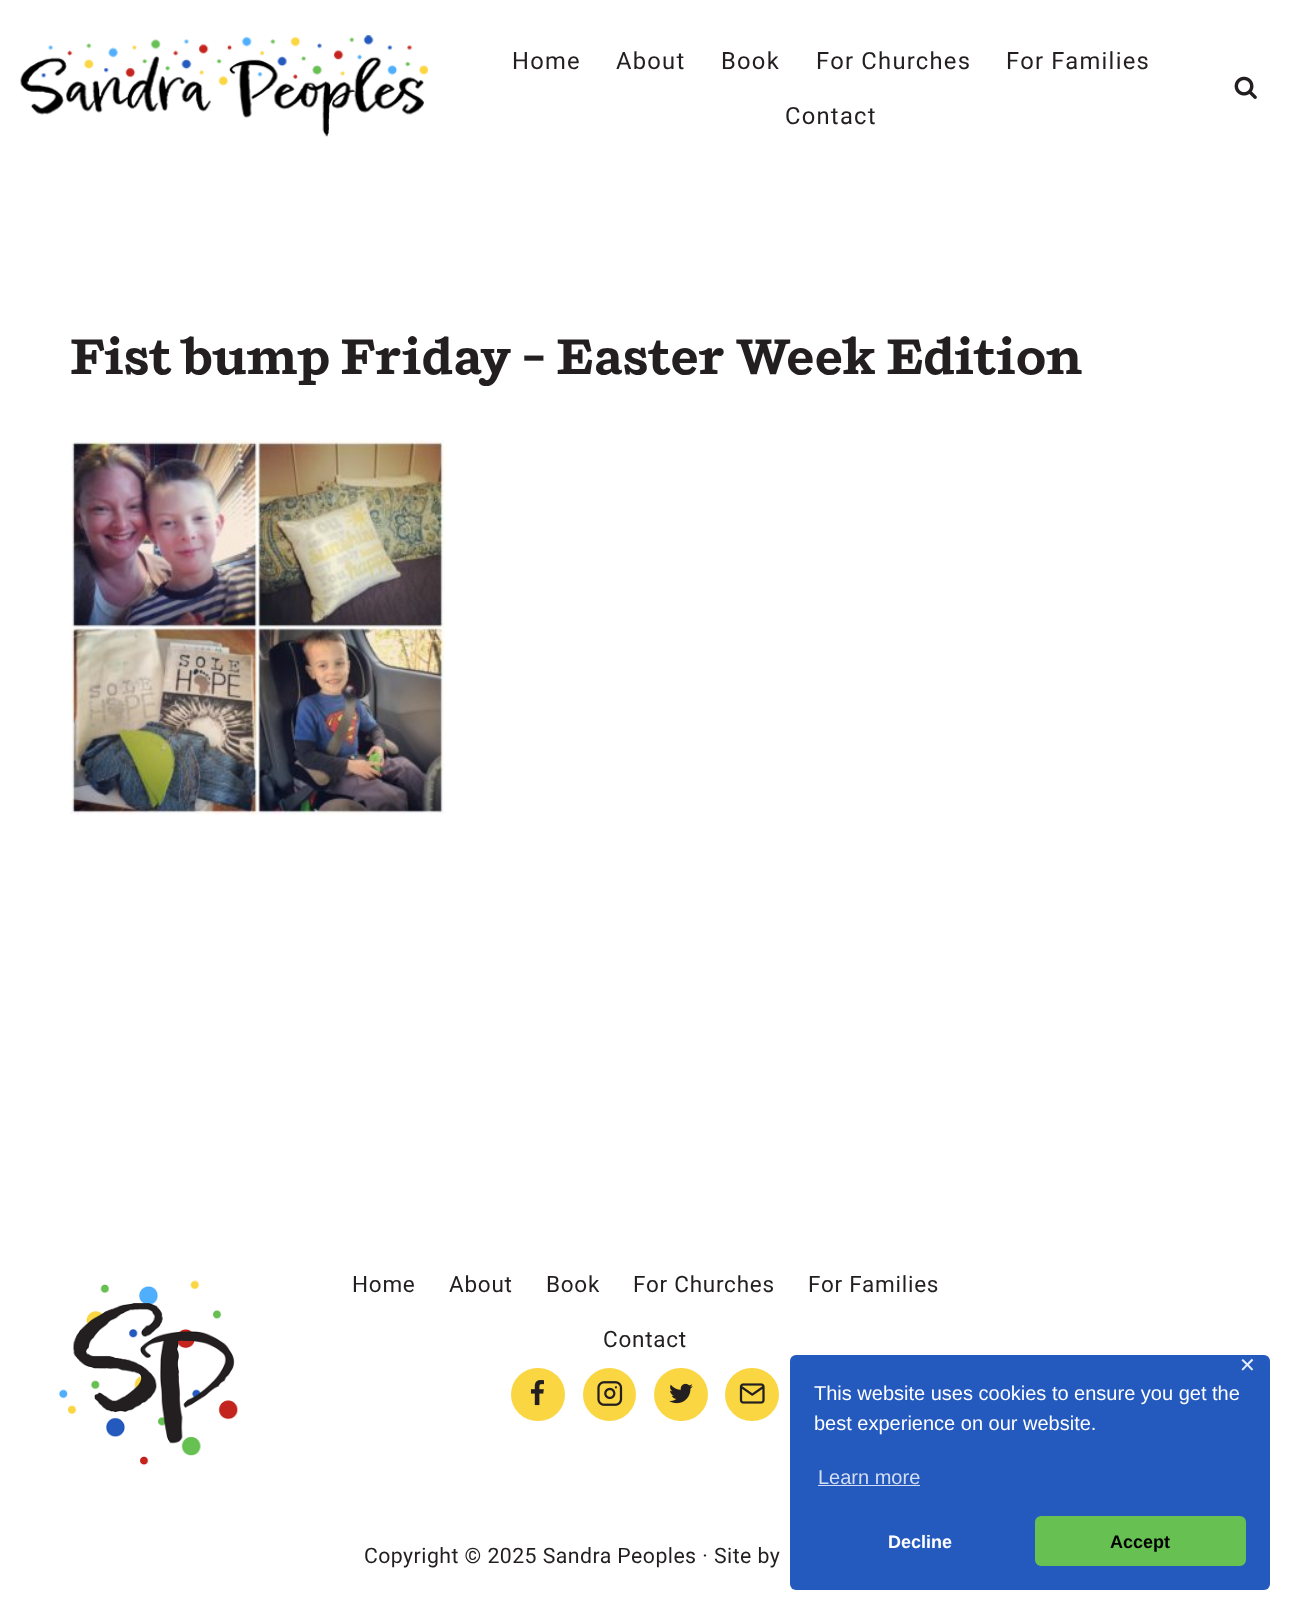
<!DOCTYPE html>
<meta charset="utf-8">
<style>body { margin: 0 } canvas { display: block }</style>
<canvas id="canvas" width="1289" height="1610"></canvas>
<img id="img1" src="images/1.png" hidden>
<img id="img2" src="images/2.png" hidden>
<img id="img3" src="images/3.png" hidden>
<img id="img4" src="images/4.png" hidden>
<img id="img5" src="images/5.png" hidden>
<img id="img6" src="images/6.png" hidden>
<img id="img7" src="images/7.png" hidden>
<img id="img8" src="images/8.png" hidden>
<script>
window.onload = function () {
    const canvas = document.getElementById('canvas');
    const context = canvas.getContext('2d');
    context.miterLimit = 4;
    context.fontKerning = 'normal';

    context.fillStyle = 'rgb(255, 255, 255)';
    context.fillRect(0, 0, 1289, 1610);
    context.drawImage(document.getElementById('img1'), 20, 35, 408, 102);
    context.drawImage(document.getElementById('img2'), 1234, 76, 23, 23);
    context.drawImage(document.getElementById('img3'), 70, 440, 375, 375);
    context.drawImage(document.getElementById('img4'), 59, 1280, 179, 186);
    context.fillStyle = 'rgb(251, 214, 67)';
    context.beginPath();
    context.roundRect(511, 1368, 54, 53, 26.5);
    context.fill();
    context.drawImage(document.getElementById('img5'), 530, 1380, 14, 26);
    context.beginPath();
    context.arc(609.5, 1394.5, 26.5, 0, 2 * Math.PI);
    context.fill();
    context.drawImage(document.getElementById('img6'), 597, 1381, 26, 25);
    context.beginPath();
    context.roundRect(654, 1368, 54, 53, 26.5);
    context.fill();
    context.drawImage(document.getElementById('img7'), 669, 1383, 24, 21);
    context.beginPath();
    context.roundRect(725, 1368, 54, 53, 26.5);
    context.fill();
    context.drawImage(document.getElementById('img8'), 739, 1383, 26, 21);
    context.fillStyle = 'rgb(36, 89, 190)';
    context.beginPath();
    context.roundRect(790, 1355, 480, 235, 6);
    context.fill();
    context.fillStyle = 'rgb(211, 222, 242)';
    context.fillRect(818, 1485, 102, 1);
    context.fillStyle = 'rgb(103, 192, 82)';
    context.beginPath();
    context.roundRect(1036.5, 1517.5, 208, 47, 4.5);
    context.fill();
    context.strokeStyle = 'rgb(103, 192, 82)';
    context.lineWidth = 3;
    context.stroke();
    context.letterSpacing = '1.25px';
    context.font = '23.75px Roboto';
    context.fillStyle = 'rgb(35, 31, 32)';
    context.fillText('Home', 512, 69);
    context.fillText('About', 616, 69);
    context.fillText('Book', 721, 69);
    context.fillText('For Churches', 816, 69);
    context.fillText('For Families', 1006, 69);
    context.fillText('Contact', 785, 124);
    context.letterSpacing = '0px';
    context.font = 'bold 50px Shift';
    context.fillText('Fist bump Friday – Easter Week Edition', 70, 374);
    context.letterSpacing = '0.75px';
    context.font = '22.5px Roboto';
    context.fillText('Home', 352, 1292);
    context.fillText('About', 449, 1292);
    context.fillText('Book', 546, 1292);
    context.fillText('For Churches', 633, 1292);
    context.fillText('For Families', 808, 1292);
    context.fillText('Contact', 603, 1347);
    context.letterSpacing = '0.45px';
    context.font = '21.25px Roboto';
    context.fillText('Copyright © 2025 Sandra Peoples · Site by', 364, 1563);
    context.letterSpacing = '0px';
    context.font = '20px DejaVu Sans';
    context.fillStyle = 'rgb(233, 238, 249)';
    context.fillText('✕', 1239, 1372);
    context.font = '20px Liberation Sans';
    context.fillStyle = 'rgb(255, 255, 255)';
    context.fillText('This website uses cookies to ensure you get the', 814, 1400);
    context.fillText('best experience on our website.', 814, 1430);
    context.fillStyle = 'rgb(211, 222, 242)';
    context.fillText('Learn more', 818, 1484);
    context.font = 'bold 18px Liberation Sans';
    context.fillStyle = 'rgb(255, 255, 255)';
    context.fillText('Decline', 888, 1548);
    context.fillStyle = 'rgb(0, 0, 0)';
    context.fillText('Accept', 1110, 1548);
};
</script>
